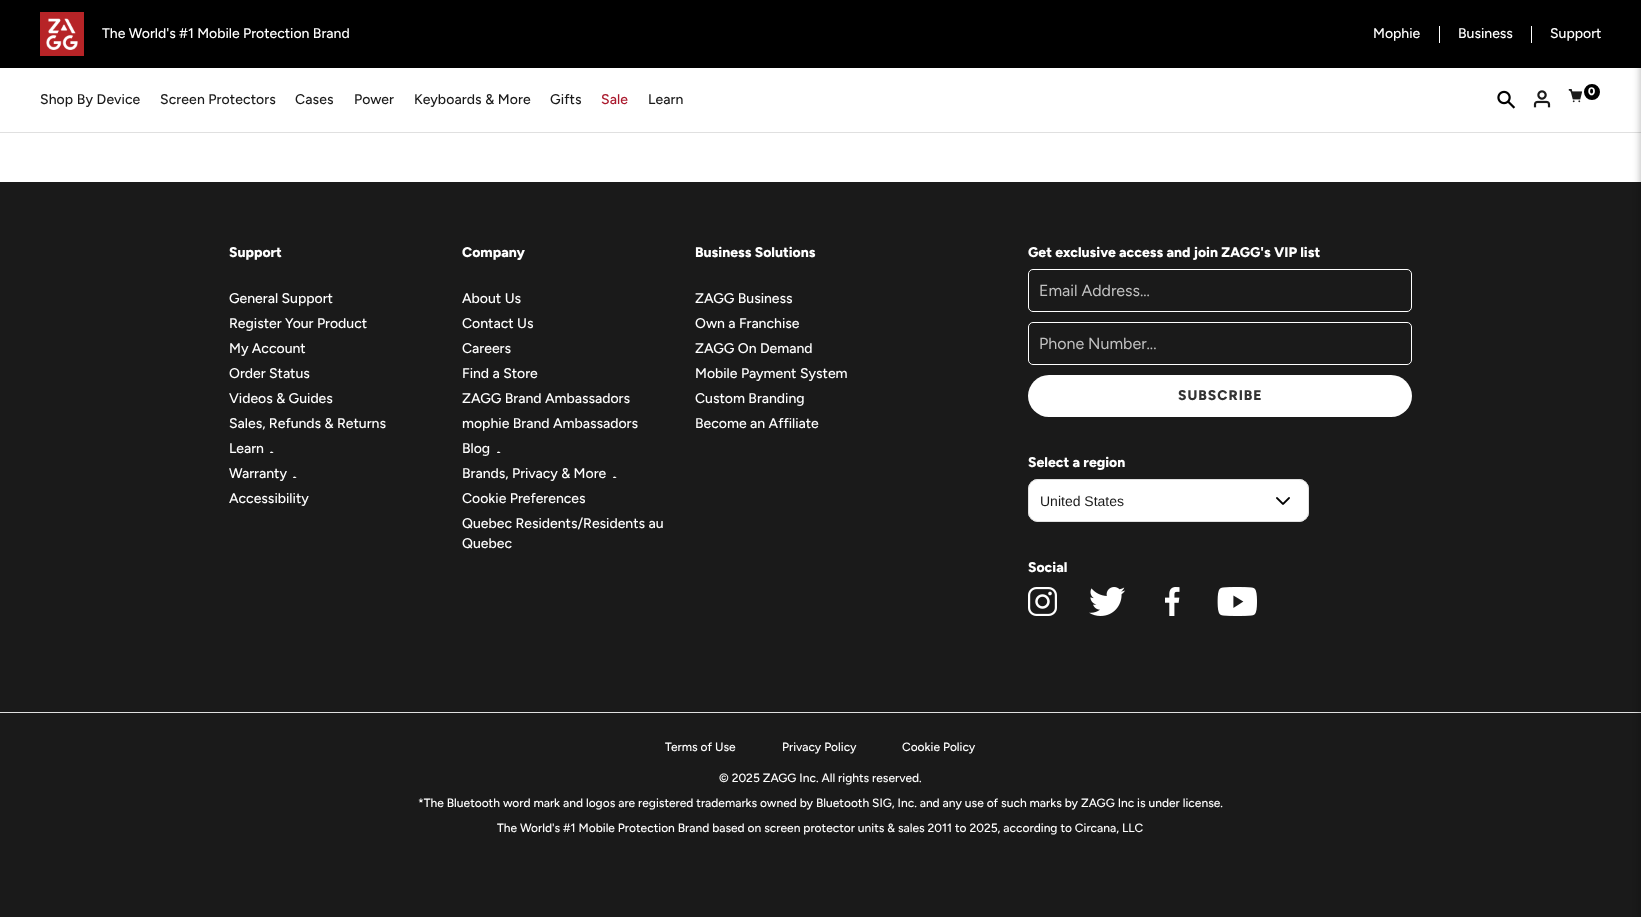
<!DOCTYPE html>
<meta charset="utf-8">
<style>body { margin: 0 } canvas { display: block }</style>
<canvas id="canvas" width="1641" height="917"></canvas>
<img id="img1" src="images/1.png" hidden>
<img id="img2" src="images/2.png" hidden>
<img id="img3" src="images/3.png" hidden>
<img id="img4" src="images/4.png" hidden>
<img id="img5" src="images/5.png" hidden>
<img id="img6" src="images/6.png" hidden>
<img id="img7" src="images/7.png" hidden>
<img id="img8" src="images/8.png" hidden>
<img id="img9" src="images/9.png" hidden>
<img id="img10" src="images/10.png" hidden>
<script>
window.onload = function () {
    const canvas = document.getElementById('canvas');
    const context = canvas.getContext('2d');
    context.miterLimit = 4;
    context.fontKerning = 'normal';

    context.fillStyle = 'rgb(255, 255, 255)';
    context.fillRect(0, 0, 1641, 917);
    context.fillStyle = 'rgb(0, 0, 0)';
    context.fillRect(0, 0, 1641, 68);
    context.fillStyle = 'rgb(224, 224, 224)';
    context.fillRect(0, 132, 1641, 1);
    context.drawImage(document.getElementById('img1'), 40, 12, 44, 44);
    context.fillStyle = 'rgb(255, 255, 255)';
    context.fillRect(1439, 26, 1, 17);
    context.fillRect(1531, 26, 1, 17);
    context.drawImage(document.getElementById('img2'), 1497, 90, 19, 19);
    context.drawImage(document.getElementById('img3'), 1533, 90, 18, 18);
    context.drawImage(document.getElementById('img4'), 1568, 89, 15, 14);
    context.fillStyle = 'rgb(0, 0, 0)';
    context.beginPath();
    context.arc(1592, 92, 9, 0, 2 * Math.PI);
    context.fill();
    context.strokeStyle = 'rgb(255, 255, 255)';
    context.lineWidth = 2;
    context.stroke();
    context.fillStyle = 'rgb(26, 26, 26)';
    context.fillRect(0, 182, 1641, 530);
    context.fillStyle = 'rgb(224, 224, 224)';
    context.fillRect(0, 712, 1641, 1);
    context.drawImage(document.getElementById('img5'), 270, 451, 4, 2);
    context.drawImage(document.getElementById('img5'), 293, 476, 4, 2);
    context.drawImage(document.getElementById('img5'), 497, 451, 4, 2);
    context.drawImage(document.getElementById('img5'), 613, 476, 4, 2);
    context.beginPath();
    context.roundRect(1028.5, 269.5, 383, 42, 4.5);
    context.lineWidth = 1;
    context.stroke();
    context.beginPath();
    context.roundRect(1028.5, 322.5, 383, 42, 4.5);
    context.stroke();
    context.fillStyle = 'rgb(255, 255, 255)';
    context.beginPath();
    context.roundRect(1028, 375, 384, 42, 21);
    context.fill();
    context.beginPath();
    context.roundRect(1028, 479, 281, 43, 10);
    context.fill();
    context.drawImage(document.getElementById('img6'), 1276, 497, 14, 8);
    context.beginPath();
    context.roundRect(1028.5, 479.5, 280, 42, 9.5);
    context.strokeStyle = 'rgb(224, 224, 224)';
    context.stroke();
    context.drawImage(document.getElementById('img7'), 1028, 587, 29, 29);
    context.drawImage(document.getElementById('img8'), 1089, 587, 37, 29);
    context.drawImage(document.getElementById('img9'), 1165, 587, 15, 29);
    context.drawImage(document.getElementById('img10'), 1217, 587, 40, 29);
    context.fillStyle = 'rgb(26, 26, 26)';
    context.fillRect(0, 713, 1641, 204);
    context.fillStyle = 'rgba(0, 0, 0, 0.25)';
    context.filter = 'blur(3.5px)';
    context.beginPath();
    context.rect(1640, 1, 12, 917);
    context.fill();
    context.filter = 'none';
    context.font = '500 14px Figtree';
    context.fillStyle = 'rgb(255, 255, 255)';
    context.fillText('The World\'s #1 Mobile Protection Brand', 102, 38);
    context.fillText('Mophie', 1373, 38);
    context.fillText('Business', 1458, 38);
    context.fillText('Support', 1550, 38);
    context.letterSpacing = '0.1px';
    context.fillStyle = 'rgb(26, 26, 26)';
    context.fillText('Shop By Device', 40, 104);
    context.fillText('Screen Protectors', 160, 104);
    context.fillText('Cases', 295, 104);
    context.fillText('Power', 354, 104);
    context.fillText('Keyboards & More', 414, 104);
    context.fillText('Gifts', 550, 104);
    context.fillStyle = 'rgb(170, 24, 44)';
    context.fillText('Sale', 601, 104);
    context.fillStyle = 'rgb(26, 26, 26)';
    context.fillText('Learn', 648, 104);
    context.letterSpacing = '0px';
    context.font = '800 11px Figtree';
    context.fillStyle = 'rgb(255, 255, 255)';
    context.fillText('0', 1588, 95);
    context.font = '800 14px Figtree';
    context.fillText('Support', 229, 257);
    context.font = '500 14px Figtree';
    context.fillText('General Support', 229, 303);
    context.fillText('Register Your Product', 229, 328);
    context.fillText('My Account', 229, 353);
    context.fillText('Order Status', 229, 378);
    context.fillText('Videos & Guides', 229, 403);
    context.fillText('Sales, Refunds & Returns', 229, 428);
    context.fillText('Learn', 229, 453);
    context.fillText('Warranty', 229, 478);
    context.fillText('Accessibility', 229, 503);
    context.font = '800 14px Figtree';
    context.fillText('Company', 462, 257);
    context.font = '500 14px Figtree';
    context.fillText('About Us', 462, 303);
    context.fillText('Contact Us', 462, 328);
    context.fillText('Careers', 462, 353);
    context.fillText('Find a Store', 462, 378);
    context.fillText('ZAGG Brand Ambassadors', 462, 403);
    context.fillText('mophie Brand Ambassadors', 462, 428);
    context.fillText('Blog', 462, 453);
    context.fillText('Brands, Privacy & More', 462, 478);
    context.fillText('Cookie Preferences', 462, 503);
    context.fillText('Quebec Residents/Residents au', 462, 528);
    context.fillText('Quebec', 462, 548);
    context.font = '800 14px Figtree';
    context.fillText('Business Solutions', 695, 257);
    context.font = '500 14px Figtree';
    context.fillText('ZAGG Business', 695, 303);
    context.fillText('Own a Franchise', 695, 328);
    context.fillText('ZAGG On Demand', 695, 353);
    context.fillText('Mobile Payment System', 695, 378);
    context.fillText('Custom Branding', 695, 403);
    context.fillText('Become an Affiliate', 695, 428);
    context.font = '800 14px Figtree';
    context.fillText('Get exclusive access and join ZAGG\'s VIP list', 1028, 257);
    context.font = '16px Figtree';
    context.fillStyle = 'rgb(194, 194, 194)';
    context.fillText('Email Address...', 1039, 296);
    context.fillText('Phone Number...', 1039, 349);
    context.letterSpacing = '1px';
    context.font = '800 14px Figtree';
    context.fillStyle = 'rgb(51, 51, 51)';
    context.fillText('SUBSCRIBE', 1178, 400);
    context.letterSpacing = '0px';
    context.fillStyle = 'rgb(255, 255, 255)';
    context.fillText('Select a region', 1028, 467);
    context.font = '14px Liberation Sans';
    context.fillStyle = 'rgb(26, 26, 26)';
    context.fillText('United States', 1040, 506);
    context.font = '800 14px Figtree';
    context.fillStyle = 'rgb(255, 255, 255)';
    context.fillText('Social', 1028, 572);
    context.font = '500 12px Figtree';
    context.fillText('Terms of Use', 665, 751);
    context.fillText('Privacy Policy', 782, 751);
    context.fillText('Cookie Policy', 902, 751);
    context.fillText('© 2025 ZAGG Inc. All rights reserved.', 719, 782);
    context.fillText('*The Bluetooth word mark and logos are registered trademarks owned by Bluetooth SIG, Inc. and any use of such marks by ZAGG Inc is under license.', 418, 807);
    context.fillText('The World\'s #1 Mobile Protection Brand based on screen protector units & sales 2011 to 2025, according to Circana, LLC', 497, 832);
};
</script>
